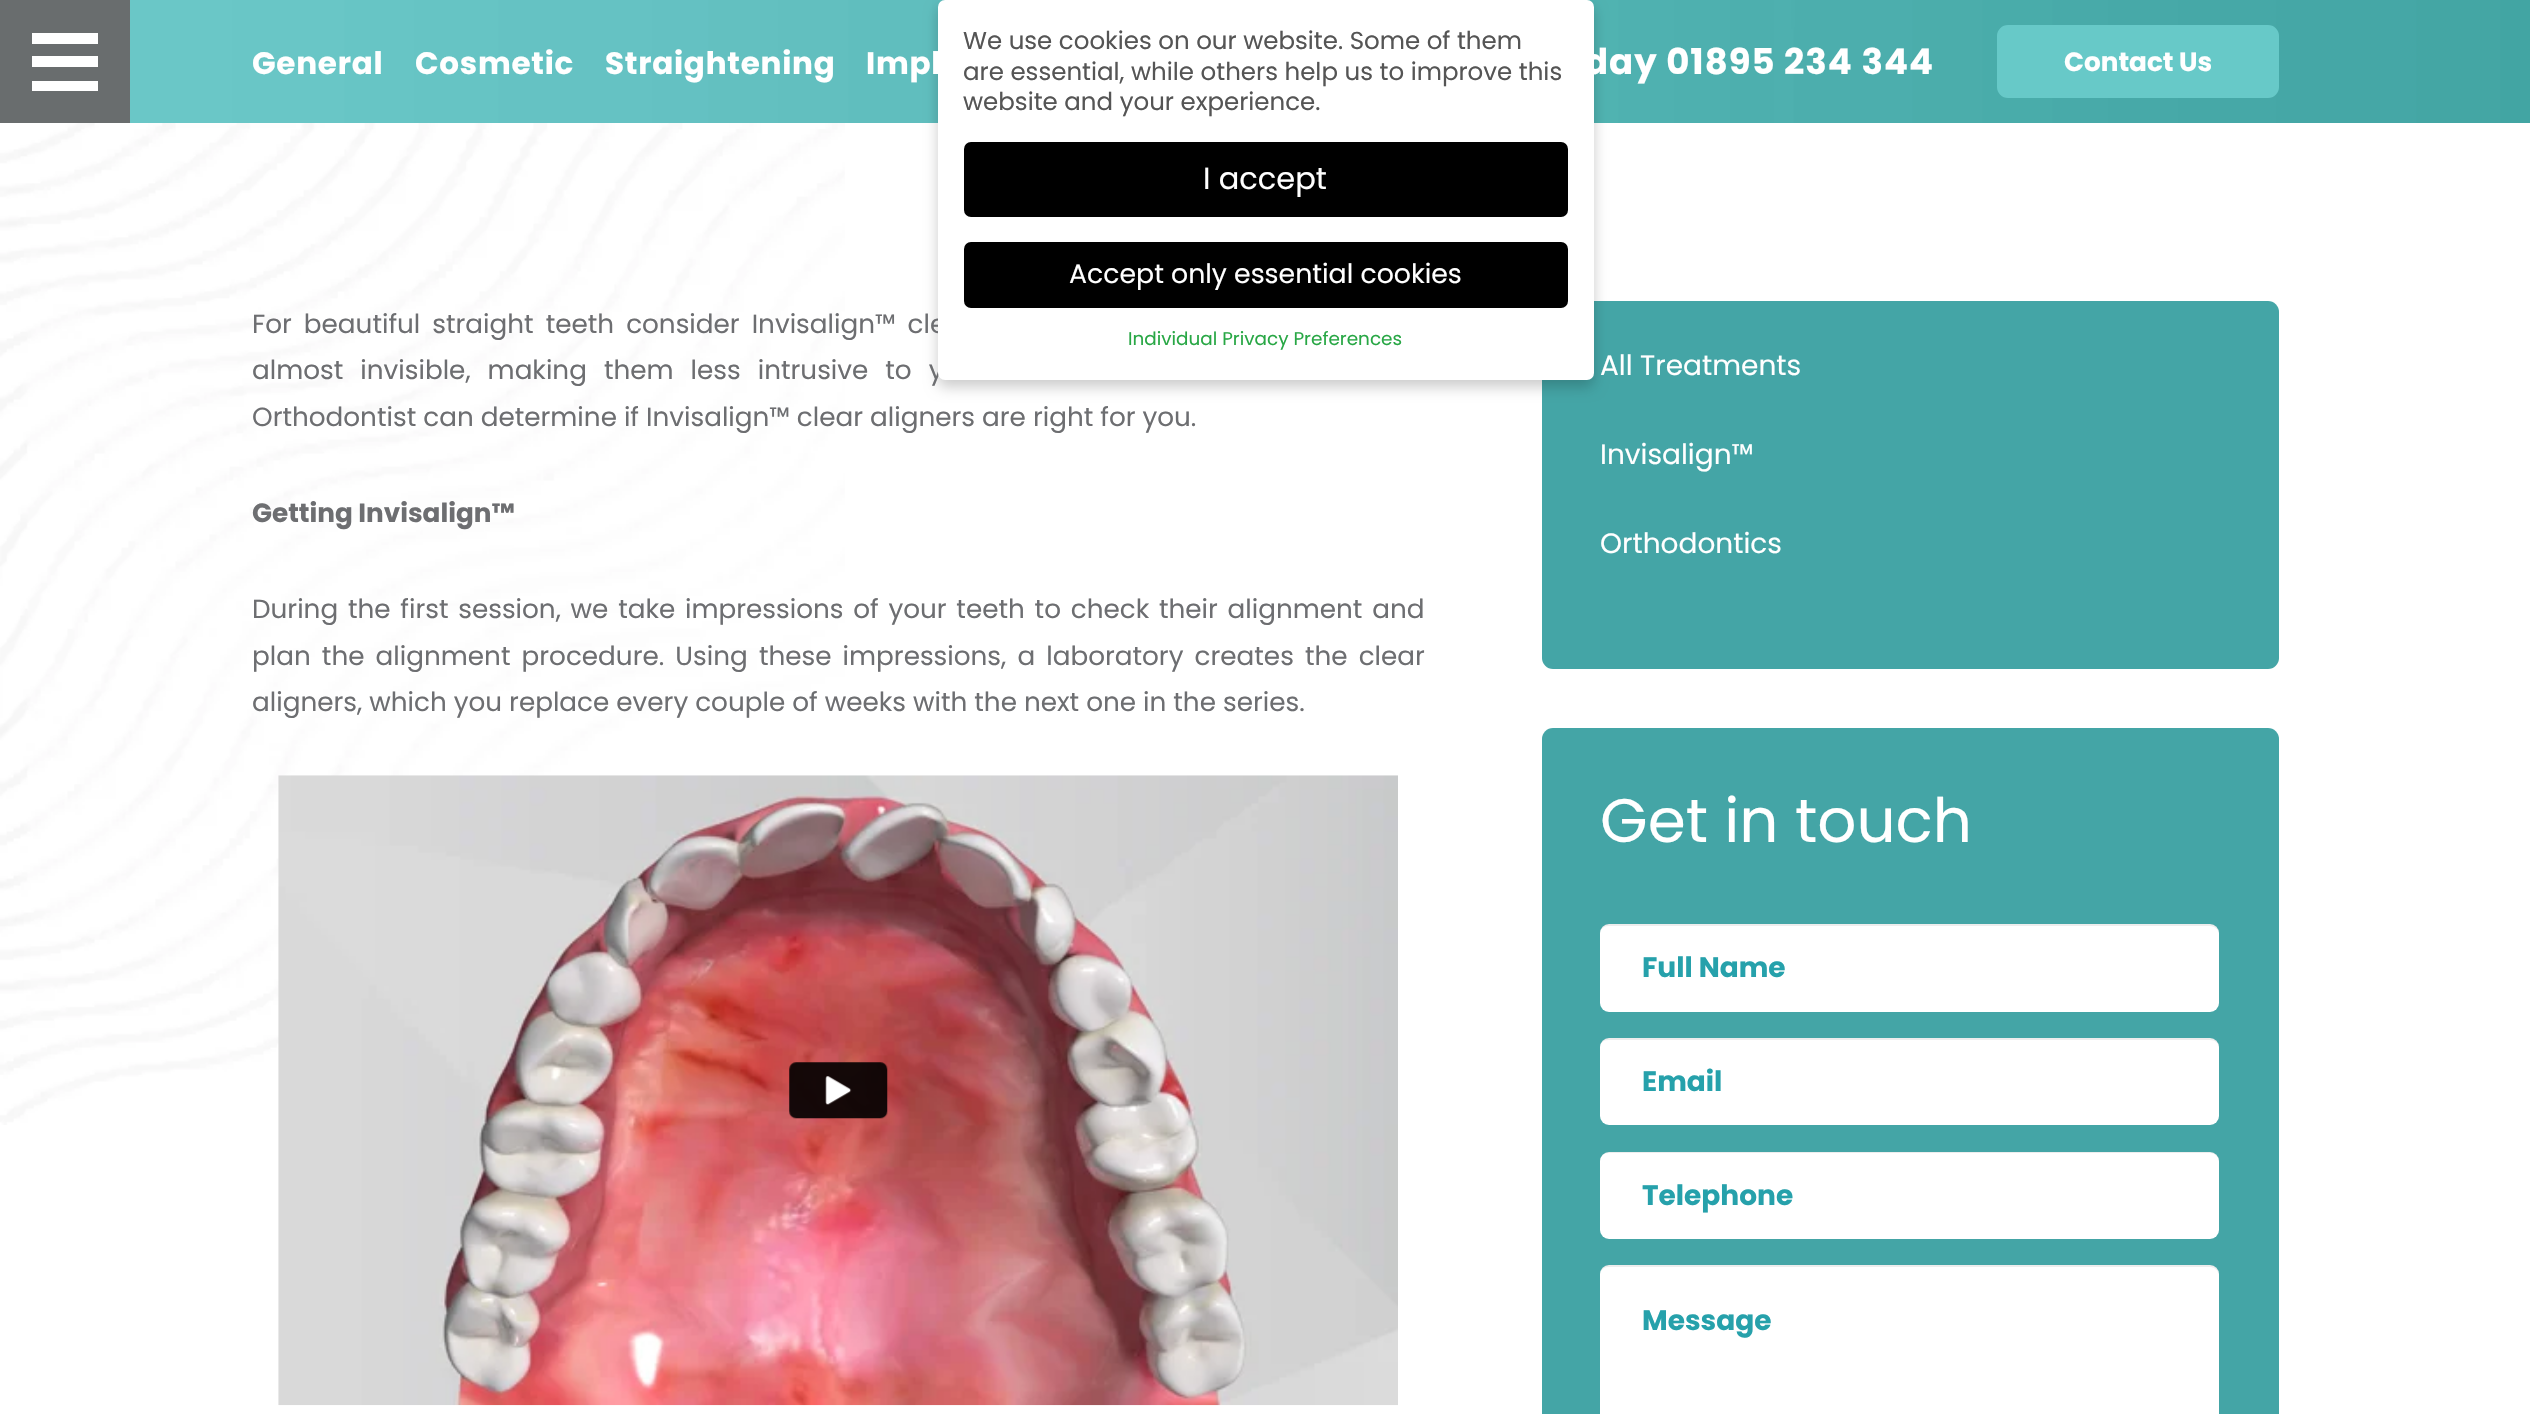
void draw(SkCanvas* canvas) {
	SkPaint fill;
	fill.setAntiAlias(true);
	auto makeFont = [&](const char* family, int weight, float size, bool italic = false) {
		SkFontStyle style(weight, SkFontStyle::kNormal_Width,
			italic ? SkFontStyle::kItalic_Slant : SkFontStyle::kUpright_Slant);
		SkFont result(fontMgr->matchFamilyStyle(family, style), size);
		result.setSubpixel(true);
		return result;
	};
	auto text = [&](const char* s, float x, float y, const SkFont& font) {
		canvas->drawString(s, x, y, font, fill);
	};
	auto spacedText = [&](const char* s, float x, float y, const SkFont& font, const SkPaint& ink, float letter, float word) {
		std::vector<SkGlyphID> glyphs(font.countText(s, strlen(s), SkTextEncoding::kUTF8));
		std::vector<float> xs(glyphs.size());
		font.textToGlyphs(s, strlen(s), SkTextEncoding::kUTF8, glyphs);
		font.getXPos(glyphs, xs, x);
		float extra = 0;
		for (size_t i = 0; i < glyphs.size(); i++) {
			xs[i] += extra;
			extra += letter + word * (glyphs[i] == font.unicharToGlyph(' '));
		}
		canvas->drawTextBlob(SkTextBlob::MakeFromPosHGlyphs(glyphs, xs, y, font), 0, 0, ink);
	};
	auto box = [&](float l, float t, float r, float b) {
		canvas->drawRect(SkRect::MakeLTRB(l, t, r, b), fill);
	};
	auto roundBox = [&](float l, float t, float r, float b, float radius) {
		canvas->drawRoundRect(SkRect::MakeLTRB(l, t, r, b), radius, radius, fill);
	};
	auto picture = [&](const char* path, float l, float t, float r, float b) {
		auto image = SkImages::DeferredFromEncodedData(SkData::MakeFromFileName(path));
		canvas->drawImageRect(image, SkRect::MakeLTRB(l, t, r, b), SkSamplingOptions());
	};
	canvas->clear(0xFFFFFFFF);
	picture("image0.png", 130, 0, 2530, 123);
	fill.setColor(0xFF44A5A6);
	roundBox(1542, 301, 2279, 669, 11);
	fill.setColor(0x33000000);
	fill.setMaskFilter(SkMaskFilter::MakeBlur(kNormal_SkBlurStyle, 7));
	canvas->drawRoundRect(SkRect::MakeLTRB(938, 7, 1594, 387), 7, 7, fill);
	fill.setMaskFilter(nullptr);
	fill.setColor(0xFF696D6E);
	box(0, 0, 130, 123);
	fill.setColor(0xFFFFFFFF);
	box(32, 33, 98, 44);
	box(32, 56, 98, 67);
	box(32, 81, 98, 91);
	fill.setColor(0xFF67C9C8);
	canvas->drawRoundRect(SkRect::MakeLTRB(1998, 26, 2278, 97), 10, 10, fill);
	fill.setStyle(SkPaint::kStroke_Style);
	fill.setStrokeWidth(2);
	canvas->drawRoundRect(SkRect::MakeLTRB(1998, 26, 2278, 97), 10, 10, fill);
	picture("image1.png", 0, 123, 845, 1125);
	picture("image2.png", 278, 775, 1398, 1406);
	fill.setStyle(SkPaint::kFill_Style);
	fill.setColor(0xFF44A5A6);
	roundBox(1542, 728, 2279, 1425, 11);
	fill.setColor(0xFFFFFFFF);
	roundBox(1600, 924, 2219, 1012, 9);
	fill.setColor(0x12000000);
	canvas->drawPath(SkPathBuilder().moveTo(1608, 926).lineTo(2210, 926).cubicTo(2215, 926, 2219, 930, 2219, 934).lineTo(2219, 933).cubicTo(2219, 928, 2215, 924, 2210, 924).lineTo(1609, 924).cubicTo(1604, 924, 1600, 928, 1600, 933).lineTo(1600, 934).cubicTo(1600, 930, 1603, 926, 1608, 926).close().detach(), fill);
	fill.setColor(0xFFFFFFFF);
	roundBox(1600, 1038, 2219, 1125, 9);
	fill.setColor(0x12000000);
	canvas->drawPath(SkPathBuilder().moveTo(1608, 1040).lineTo(2210, 1040).cubicTo(2215, 1040, 2219, 1043, 2219, 1048).lineTo(2219, 1047).cubicTo(2219, 1042, 2215, 1038, 2210, 1038).lineTo(1609, 1038).cubicTo(1604, 1038, 1600, 1042, 1600, 1047).lineTo(1600, 1048).cubicTo(1600, 1043, 1603, 1040, 1608, 1040).close().detach(), fill);
	fill.setColor(0xFFFFFFFF);
	roundBox(1600, 1152, 2219, 1239, 9);
	fill.setColor(0x12000000);
	canvas->drawPath(SkPathBuilder().moveTo(1608, 1153).lineTo(2210, 1153).cubicTo(2215, 1153, 2219, 1157, 2219, 1162).lineTo(2219, 1161).cubicTo(2219, 1156, 2215, 1152, 2210, 1152).lineTo(1609, 1152).cubicTo(1604, 1152, 1600, 1156, 1600, 1161).lineTo(1600, 1162).cubicTo(1600, 1157, 1603, 1153, 1608, 1153).close().detach(), fill);
	fill.setColor(0xFFFFFFFF);
	roundBox(1600, 1265, 2219, 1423, 9);
	fill.setColor(0x12000000);
	canvas->drawPath(SkPathBuilder().moveTo(1608, 1267).lineTo(2210, 1267).cubicTo(2215, 1267, 2219, 1271, 2219, 1276).cubicTo(2219, 1270, 2216, 1265, 2210, 1265).lineTo(1609, 1265).cubicTo(1603, 1265, 1600, 1270, 1600, 1276).cubicTo(1600, 1271, 1603, 1267, 1608, 1267).close().detach(), fill);
	auto font1 = makeFont("Poppins", 700, 31);
	fill.setColor(0xFFFFFFFF);
	spacedText("General", 252, 74, font1, fill, 0.75f, 0);
	spacedText("Cosmetic", 415, 74, font1, fill, 0.75f, 0);
	spacedText("Straightening", 605, 74, font1, fill, 0.75f, 0);
	spacedText("Impl", 866, 74, font1, fill, 0.75f, 0);
	auto font2 = makeFont("Poppins", 700, 35.5f);
	spacedText("day 01895 234 344", 1584, 74, font2, fill, 1, 0);
	auto font3 = makeFont("Poppins", 700, 26.25f);
	text("Contact Us", 2064, 71, font3);
	auto font4 = makeFont("Poppins", 400, 26.25f);
	fill.setColor(0xFF6D6E71);
	spacedText("For beautiful straight teeth consider Invisalign™ cle", 252, 333, font4, fill, 0, 5);
	spacedText("almost invisible, making them less intrusive to y", 252, 379, font4, fill, 0, 10);
	fill.setColor(0xFFFFFFFF);
	roundBox(938, 0, 1594, 380, 7);
	auto font5 = makeFont("Poppins", 400, 18.4f);
	fill.setColor(0xFF28A745);
	text("Individual Privacy Preferences", 1128, 345, font5);
	fill.setColor(0xFF000000);
	roundBox(964, 242, 1568, 308, 7);
	auto font6 = makeFont("Poppins", 400, 26.75f);
	fill.setColor(0xFFFFFFFF);
	text("Accept only essential cookies", 1069, 283, font6);
	fill.setColor(0xFF000000);
	roundBox(964, 142, 1568, 217, 7);
	auto font7 = makeFont("Poppins", 400, 30.5f);
	fill.setColor(0xFFFFFFFF);
	text("I accept", 1203, 189, font7);
	auto font8 = makeFont("Poppins", 400, 24.5f);
	fill.setColor(0xFF555555);
	text("website and your experience.", 963, 110, font8);
	text("are essential, while others help us to improve this", 963, 80, font8);
	text("We use cookies on our website. Some of them", 963, 49, font8);
	fill.setColor(0xFF6D6E71);
	text("Orthodontist can determine if Invisalign™ clear aligners are right for you.", 252, 426, font4);
	text("Getting Invisalign™", 252, 522, font3);
	spacedText("During the first session, we take impressions of your teeth to check their alignment and", 252, 618, font4, fill, 0, 2.75f);
	spacedText("plan the alignment procedure. Using these impressions, a laboratory creates the clear", 252, 665, font4, fill, 0, 4.1f);
	text("aligners, which you replace every couple of weeks with the next one in the series.", 252, 711, font4);
	auto font9 = makeFont("Poppins", 400, 28);
	fill.setColor(0xFFFFFFFF);
	text("All Treatments", 1600, 375, font9);
	text("Invisalign™", 1600, 464, font9);
	text("Orthodontics", 1600, 553, font9);
	auto font10 = makeFont("Poppins", 400, 61.25f);
	text("Get in touch", 1600, 842, font10);
	auto font11 = makeFont("Poppins", 700, 28);
	fill.setColor(0xFF26A1AB);
	text("Full Name", 1642, 977, font11);
	text("Email", 1642, 1091, font11);
	text("Telephone", 1642, 1205, font11);
	text("Message", 1642, 1330, font11);
}
